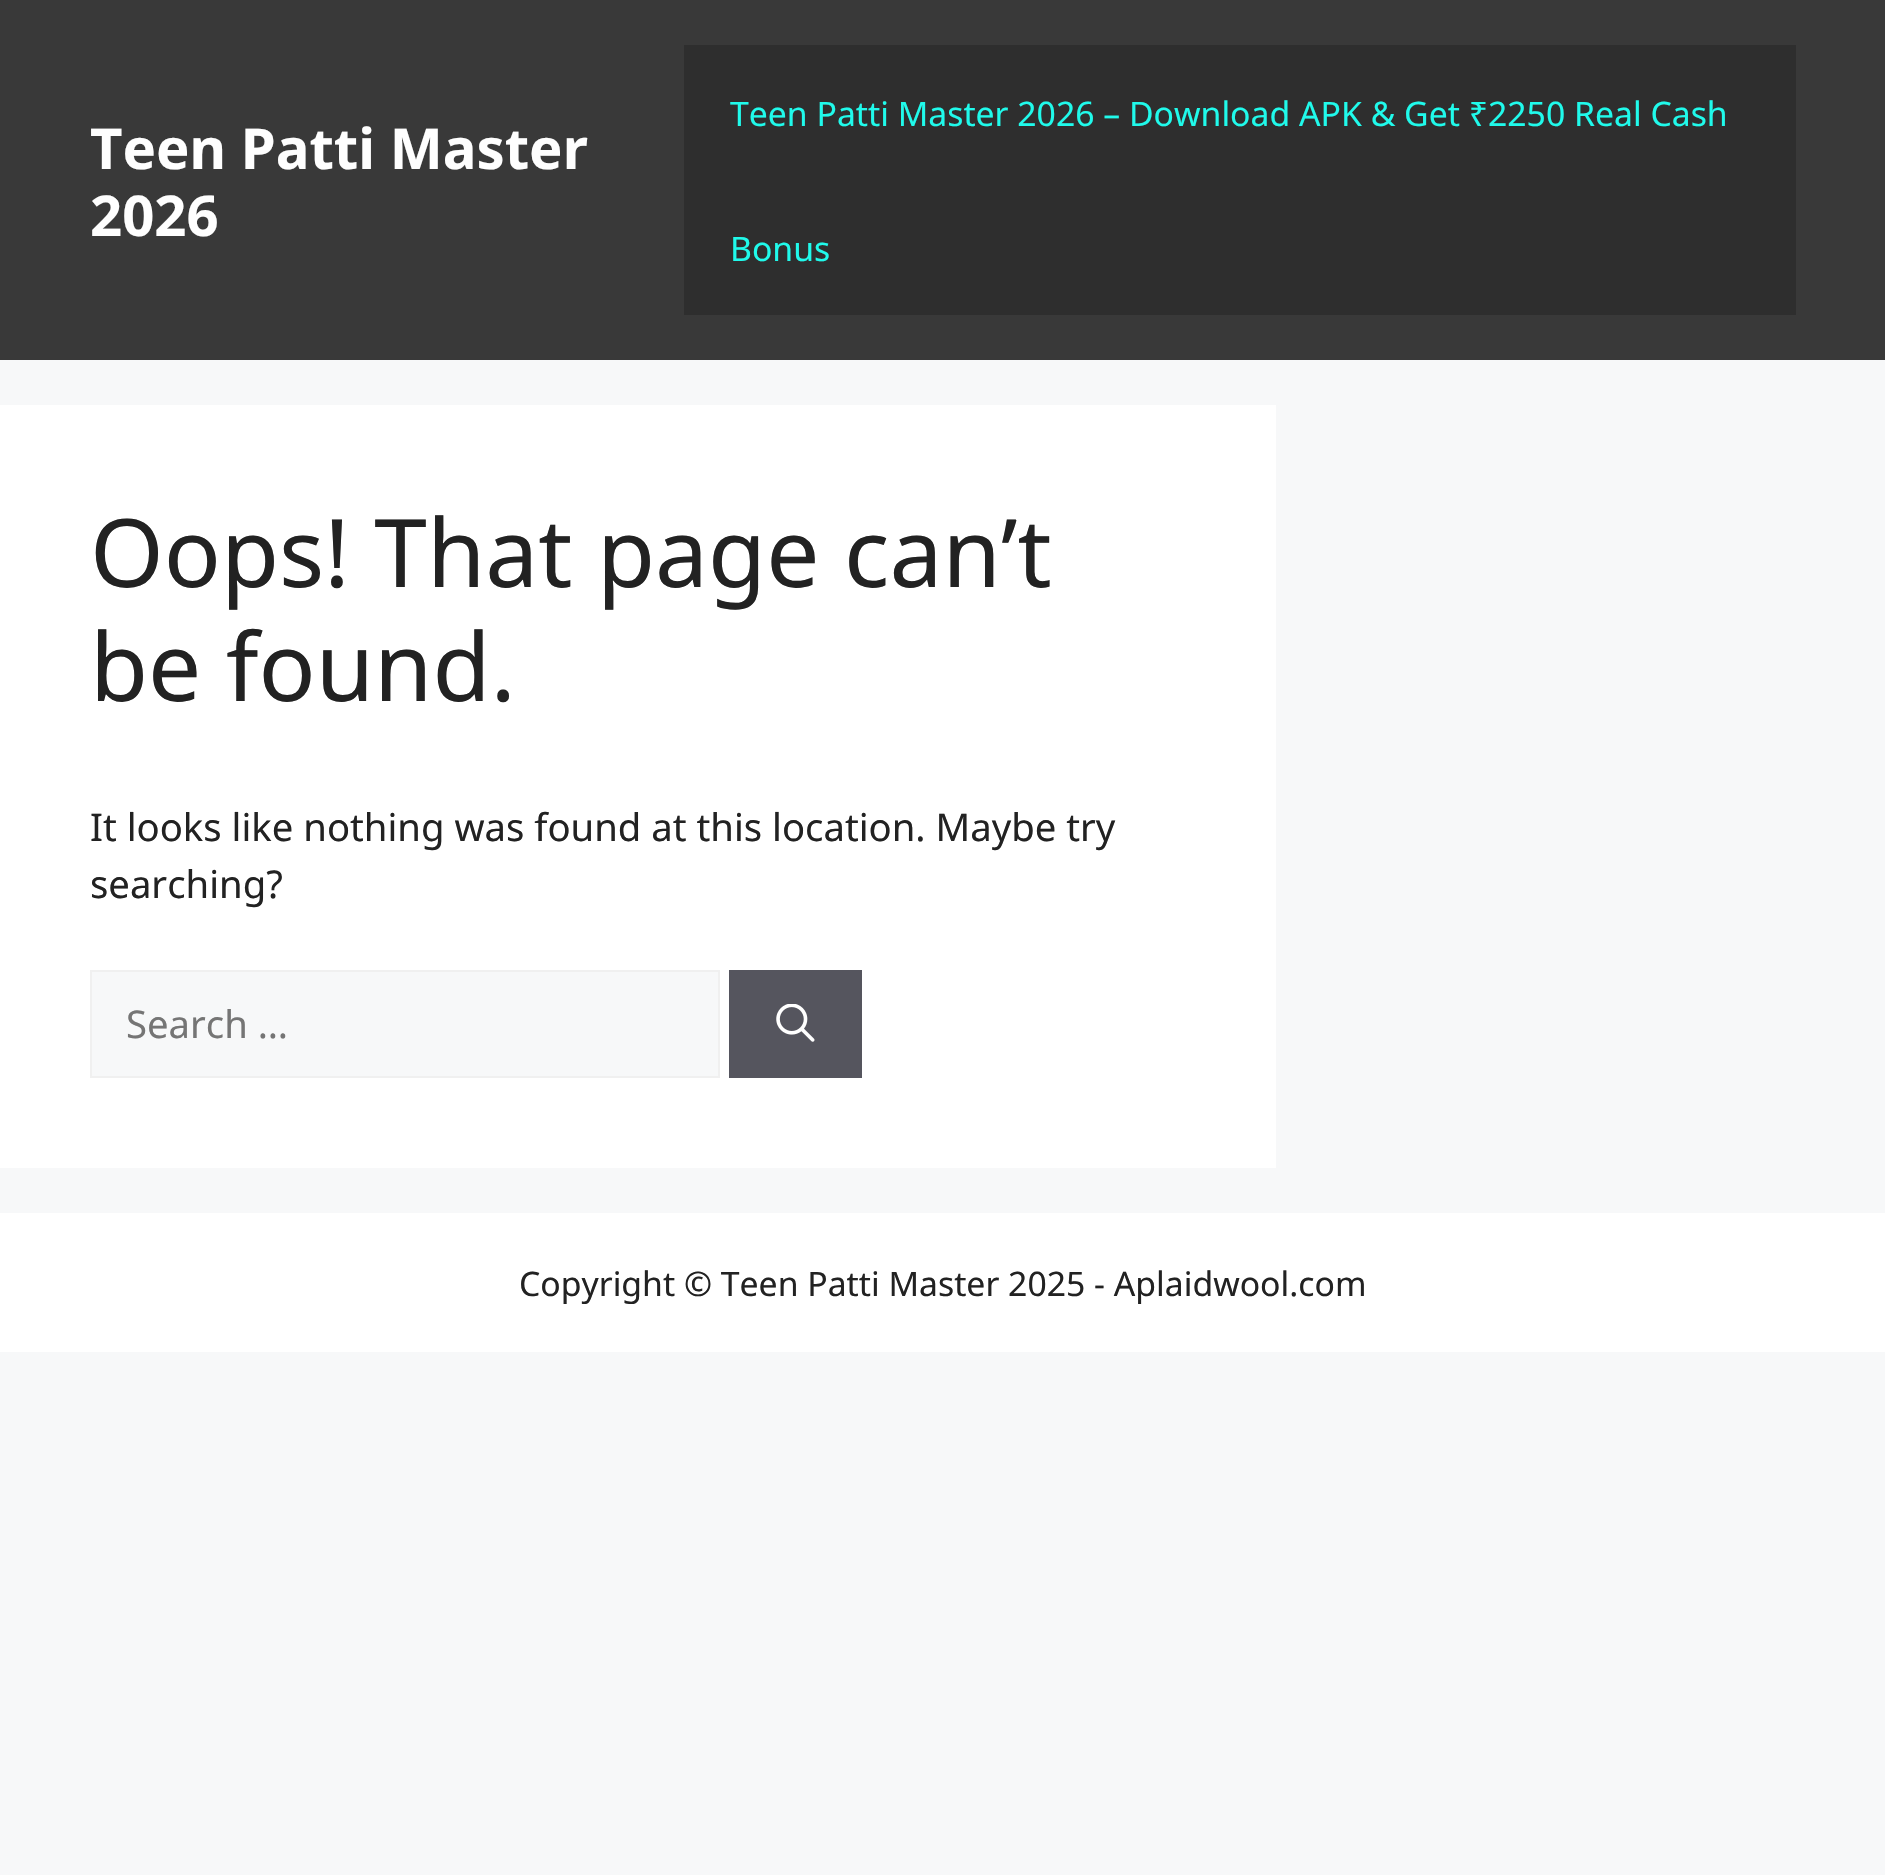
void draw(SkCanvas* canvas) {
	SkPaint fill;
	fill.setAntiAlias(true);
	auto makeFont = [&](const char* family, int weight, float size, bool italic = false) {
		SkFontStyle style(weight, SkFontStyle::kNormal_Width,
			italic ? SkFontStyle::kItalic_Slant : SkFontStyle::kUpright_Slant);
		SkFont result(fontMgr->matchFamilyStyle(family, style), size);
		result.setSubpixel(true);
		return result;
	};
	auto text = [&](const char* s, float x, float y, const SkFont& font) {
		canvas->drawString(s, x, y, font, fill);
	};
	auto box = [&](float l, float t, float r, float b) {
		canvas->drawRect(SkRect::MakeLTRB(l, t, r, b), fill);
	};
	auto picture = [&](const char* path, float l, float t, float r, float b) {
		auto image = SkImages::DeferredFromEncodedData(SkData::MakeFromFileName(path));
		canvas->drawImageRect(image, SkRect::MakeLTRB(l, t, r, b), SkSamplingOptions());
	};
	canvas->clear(0xFFF7F8F9);
	fill.setColor(0xFF393939);
	box(0, 0, 1885, 360);
	fill.setColor(0xFF2E2E2E);
	box(684, 45, 1796, 315);
	fill.setColor(0xFFFFFFFF);
	box(0, 405, 1276, 1168);
	fill.setColor(0xFFF7F8F9);
	canvas->drawRect(SkRect::MakeLTRB(91, 971, 719, 1077), fill);
	fill.setStyle(SkPaint::kStroke_Style);
	fill.setStrokeWidth(2);
	fill.setColor(0xFFF0F0F0);
	canvas->drawRect(SkRect::MakeLTRB(91, 971, 719, 1077), fill);
	fill.setStyle(SkPaint::kFill_Style);
	fill.setColor(0xFF55555E);
	box(729, 970, 862, 1078);
	picture("image0.png", 776, 1004, 815, 1042);
	fill.setColor(0xFFFFFFFF);
	box(0, 1213, 1885, 1352);
	auto font1 = makeFont("Noto Sans", 700, 56.25f);
	fill.setColor(0xFFFEFEFE);
	text("Teen Patti Master", 90, 169, font1);
	text("2026", 90, 236, font1);
	auto font2 = makeFont("Noto Sans", 400, 33.75f);
	fill.setColor(0xFF20FAEB);
	text("Teen Patti Master 2026 – Download APK & Get ₹2250 Real Cash", 730, 126, font2);
	text("Bonus", 730, 261, font2);
	auto font3 = makeFont("Noto Sans", 400, 94.5f);
	fill.setColor(0xFF222222);
	text("Oops! That page can’t", 90, 587, font3);
	text("be found.", 90, 701, font3);
	auto font4 = makeFont("Noto Sans", 400, 38.25f);
	text("It looks like nothing was found at this location. Maybe try", 90, 841, font4);
	text("searching?", 90, 898, font4);
	fill.setColor(0xFF757575);
	text("Search …", 126, 1038, font4);
	fill.setColor(0xFF222222);
	text("Copyright © Teen Patti Master 2025 - Aplaidwool.com", 519, 1296, font2);
}
